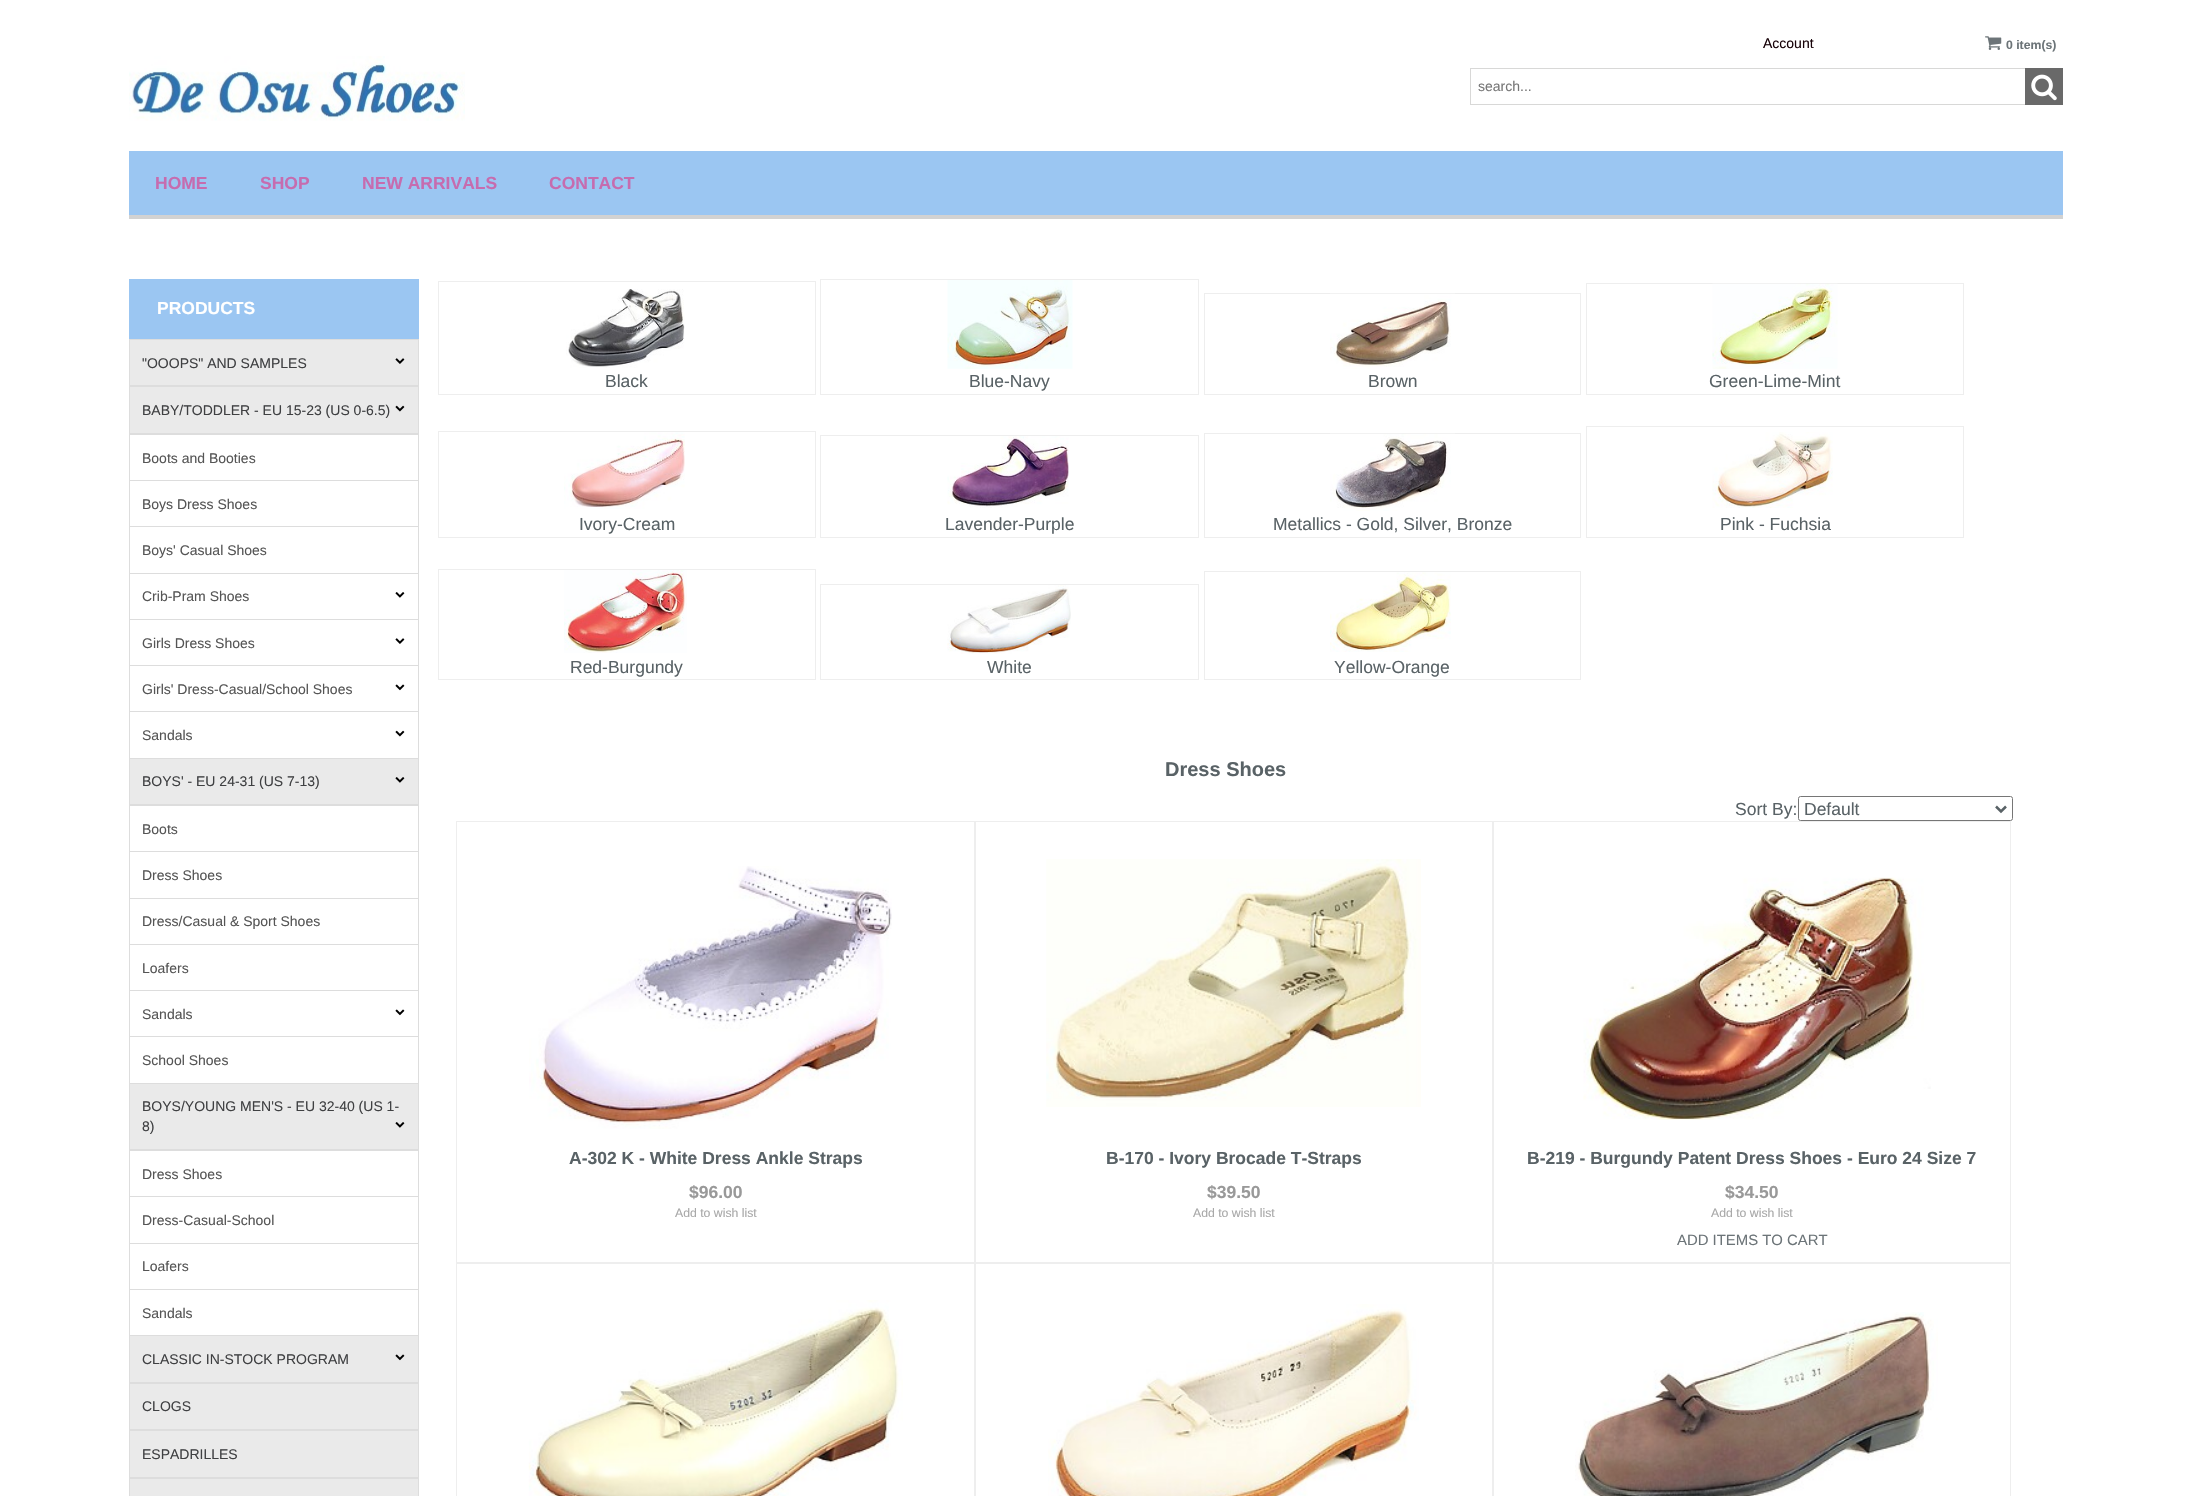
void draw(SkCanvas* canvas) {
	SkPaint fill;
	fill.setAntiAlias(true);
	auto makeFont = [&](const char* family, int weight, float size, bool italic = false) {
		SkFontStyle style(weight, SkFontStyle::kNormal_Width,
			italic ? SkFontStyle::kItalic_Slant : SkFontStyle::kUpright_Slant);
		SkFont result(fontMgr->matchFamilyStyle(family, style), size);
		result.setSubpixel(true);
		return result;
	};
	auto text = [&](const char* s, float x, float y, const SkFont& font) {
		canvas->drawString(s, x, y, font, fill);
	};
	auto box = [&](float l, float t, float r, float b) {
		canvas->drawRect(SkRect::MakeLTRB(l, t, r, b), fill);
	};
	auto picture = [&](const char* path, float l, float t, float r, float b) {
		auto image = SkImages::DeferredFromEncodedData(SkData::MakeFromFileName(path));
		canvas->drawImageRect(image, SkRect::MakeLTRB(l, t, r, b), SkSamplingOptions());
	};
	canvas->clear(0xFFFFFFFF);
	picture("image0.png", 1985, 36, 2002, 50);
	picture("image1.png", 129, 56, 465, 121);
	fill.setStyle(SkPaint::kStroke_Style);
	fill.setStrokeWidth(1);
	fill.setColor(0xFFD8D8D7);
	canvas->drawRect(SkRect::MakeLTRB(1470.5f, 68.5f, 2062.5f, 104.5f), fill);
	fill.setStyle(SkPaint::kFill_Style);
	fill.setColor(0xFF696969);
	box(2025, 68, 2063, 105);
	picture("image2.png", 2031, 74, 2057, 101);
	fill.setColor(0xFF9BC6F2);
	box(129, 151, 2063, 215);
	fill.setColor(0xFFD2D2D2);
	box(129, 215, 2063, 219);
	fill.setColor(0xFF9BC6F2);
	box(129, 279, 419, 339);
	fill.setColor(0xFFEAEAEA);
	canvas->drawRect(SkRect::MakeLTRB(129.5f, 339.5f, 418.5f, 385.5f), fill);
	fill.setStyle(SkPaint::kStroke_Style);
	fill.setColor(0xFFDDDDDD);
	canvas->drawRect(SkRect::MakeLTRB(129.5f, 339.5f, 418.5f, 385.5f), fill);
	picture("image3.png", 395, 358, 405, 364);
	fill.setStyle(SkPaint::kFill_Style);
	fill.setColor(0xFFEAEAEA);
	canvas->drawRect(SkRect::MakeLTRB(129.5f, 386.5f, 418.5f, 433.5f), fill);
	fill.setStyle(SkPaint::kStroke_Style);
	fill.setColor(0xFFDDDDDD);
	canvas->drawRect(SkRect::MakeLTRB(129.5f, 386.5f, 418.5f, 433.5f), fill);
	picture("image4.png", 395, 405, 405, 412);
	canvas->drawRect(SkRect::MakeLTRB(129.5f, 434.5f, 418.5f, 480.5f), fill);
	canvas->drawRect(SkRect::MakeLTRB(129.5f, 480.5f, 418.5f, 527.5f), fill);
	fill.setStyle(SkPaint::kFill_Style);
	fill.setColor(0xFFFFFFFF);
	box(130, 527, 418, 528);
	fill.setStyle(SkPaint::kStroke_Style);
	fill.setColor(0xFFDDDDDD);
	canvas->drawRect(SkRect::MakeLTRB(129.5f, 526.5f, 418.5f, 573.5f), fill);
	canvas->drawRect(SkRect::MakeLTRB(129.5f, 573.5f, 418.5f, 619.5f), fill);
	picture("image5.png", 395, 592, 405, 598);
	canvas->drawRect(SkRect::MakeLTRB(129.5f, 619.5f, 418.5f, 665.5f), fill);
	picture("image6.png", 395, 638, 405, 644);
	canvas->drawRect(SkRect::MakeLTRB(129.5f, 665.5f, 418.5f, 712.5f), fill);
	picture("image7.png", 395, 684, 405, 691);
	fill.setStyle(SkPaint::kFill_Style);
	fill.setColor(0xFFFFFFFF);
	box(130, 712, 418, 713);
	fill.setStyle(SkPaint::kStroke_Style);
	fill.setColor(0xFFDDDDDD);
	canvas->drawRect(SkRect::MakeLTRB(129.5f, 711.5f, 418.5f, 758.5f), fill);
	picture("image8.png", 395, 730, 405, 737);
	fill.setStyle(SkPaint::kFill_Style);
	fill.setColor(0xFFEAEAEA);
	canvas->drawRect(SkRect::MakeLTRB(129.5f, 758.5f, 418.5f, 804.5f), fill);
	fill.setStyle(SkPaint::kStroke_Style);
	fill.setColor(0xFFDDDDDD);
	canvas->drawRect(SkRect::MakeLTRB(129.5f, 758.5f, 418.5f, 804.5f), fill);
	picture("image9.png", 395, 777, 405, 783);
	canvas->drawRect(SkRect::MakeLTRB(129.5f, 805.5f, 418.5f, 852.5f), fill);
	fill.setStyle(SkPaint::kFill_Style);
	fill.setColor(0xFFFFFFFF);
	box(130, 852, 418, 853);
	fill.setStyle(SkPaint::kStroke_Style);
	fill.setColor(0xFFDDDDDD);
	canvas->drawRect(SkRect::MakeLTRB(129.5f, 851.5f, 418.5f, 898.5f), fill);
	canvas->drawRect(SkRect::MakeLTRB(129.5f, 898.5f, 418.5f, 944.5f), fill);
	canvas->drawRect(SkRect::MakeLTRB(129.5f, 944.5f, 418.5f, 990.5f), fill);
	canvas->drawRect(SkRect::MakeLTRB(129.5f, 990.5f, 418.5f, 1037.5f), fill);
	picture("image7.png", 395, 1009, 405, 1016);
	fill.setStyle(SkPaint::kFill_Style);
	fill.setColor(0xFFFFFFFF);
	box(130, 1037, 418, 1038);
	fill.setStyle(SkPaint::kStroke_Style);
	fill.setColor(0xFFDDDDDD);
	canvas->drawRect(SkRect::MakeLTRB(129.5f, 1036.5f, 418.5f, 1083.5f), fill);
	fill.setStyle(SkPaint::kFill_Style);
	fill.setColor(0xFFEAEAEA);
	canvas->drawRect(SkRect::MakeLTRB(129.5f, 1083.5f, 418.5f, 1149.5f), fill);
	fill.setStyle(SkPaint::kStroke_Style);
	fill.setColor(0xFFDDDDDD);
	canvas->drawRect(SkRect::MakeLTRB(129.5f, 1083.5f, 418.5f, 1149.5f), fill);
	picture("image9.png", 395, 1122, 405, 1128);
	canvas->drawRect(SkRect::MakeLTRB(129.5f, 1150.5f, 418.5f, 1197.5f), fill);
	fill.setStyle(SkPaint::kFill_Style);
	fill.setColor(0xFFFFFFFF);
	box(130, 1197, 418, 1198);
	fill.setStyle(SkPaint::kStroke_Style);
	fill.setColor(0xFFDDDDDD);
	canvas->drawRect(SkRect::MakeLTRB(129.5f, 1196.5f, 418.5f, 1243.5f), fill);
	canvas->drawRect(SkRect::MakeLTRB(129.5f, 1243.5f, 418.5f, 1289.5f), fill);
	canvas->drawRect(SkRect::MakeLTRB(129.5f, 1289.5f, 418.5f, 1335.5f), fill);
	fill.setStyle(SkPaint::kFill_Style);
	fill.setColor(0xFFEAEAEA);
	canvas->drawRect(SkRect::MakeLTRB(129.5f, 1335.5f, 418.5f, 1382.5f), fill);
	fill.setStyle(SkPaint::kStroke_Style);
	fill.setColor(0xFFDDDDDD);
	canvas->drawRect(SkRect::MakeLTRB(129.5f, 1335.5f, 418.5f, 1382.5f), fill);
	picture("image10.png", 395, 1354, 405, 1361);
	fill.setStyle(SkPaint::kFill_Style);
	fill.setColor(0xFFEAEAEA);
	canvas->drawRect(SkRect::MakeLTRB(129.5f, 1383.5f, 418.5f, 1429.5f), fill);
	fill.setStyle(SkPaint::kStroke_Style);
	fill.setColor(0xFFDDDDDD);
	canvas->drawRect(SkRect::MakeLTRB(129.5f, 1383.5f, 418.5f, 1429.5f), fill);
	fill.setStyle(SkPaint::kFill_Style);
	fill.setColor(0xFFEAEAEA);
	canvas->drawRect(SkRect::MakeLTRB(129.5f, 1430.5f, 418.5f, 1477.5f), fill);
	fill.setStyle(SkPaint::kStroke_Style);
	fill.setColor(0xFFDDDDDD);
	canvas->drawRect(SkRect::MakeLTRB(129.5f, 1430.5f, 418.5f, 1477.5f), fill);
	fill.setStyle(SkPaint::kFill_Style);
	fill.setColor(0xFFEAEAEA);
	canvas->drawRect(SkRect::MakeLTRB(129.5f, 1478.5f, 418.5f, 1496.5f), fill);
	fill.setStyle(SkPaint::kStroke_Style);
	fill.setColor(0xFFDDDDDD);
	canvas->drawRect(SkRect::MakeLTRB(129.5f, 1478.5f, 418.5f, 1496.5f), fill);
	fill.setColor(0xFFEEEEEE);
	canvas->drawRect(SkRect::MakeLTRB(438.5f, 281.5f, 815.5f, 394.5f), fill);
	picture("image11.png", 566, 289, 685, 368);
	canvas->drawRect(SkRect::MakeLTRB(820.5f, 279.5f, 1198.5f, 394.5f), fill);
	picture("image12.png", 947, 280, 1073, 369);
	canvas->drawRect(SkRect::MakeLTRB(1204.5f, 293.5f, 1580.5f, 394.5f), fill);
	picture("image13.png", 1330, 293, 1455, 369);
	canvas->drawRect(SkRect::MakeLTRB(1586.5f, 283.5f, 1963.5f, 394.5f), fill);
	picture("image14.png", 1712, 283, 1838, 369);
	canvas->drawRect(SkRect::MakeLTRB(438.5f, 431.5f, 815.5f, 537.5f), fill);
	picture("image15.png", 564, 432, 685, 509);
	canvas->drawRect(SkRect::MakeLTRB(820.5f, 435.5f, 1198.5f, 537.5f), fill);
	picture("image16.png", 947, 436, 1069, 508);
	canvas->drawRect(SkRect::MakeLTRB(1204.5f, 433.5f, 1580.5f, 537.5f), fill);
	picture("image17.png", 1330, 433, 1455, 511);
	canvas->drawRect(SkRect::MakeLTRB(1586.5f, 426.5f, 1963.5f, 537.5f), fill);
	picture("image18.png", 1712, 432, 1833, 508);
	canvas->drawRect(SkRect::MakeLTRB(438.5f, 569.5f, 815.5f, 679.5f), fill);
	picture("image19.png", 564, 570, 687, 653);
	canvas->drawRect(SkRect::MakeLTRB(820.5f, 584.5f, 1198.5f, 679.5f), fill);
	picture("image20.png", 947, 585, 1071, 654);
	canvas->drawRect(SkRect::MakeLTRB(1204.5f, 571.5f, 1580.5f, 679.5f), fill);
	picture("image21.png", 1330, 572, 1451, 652);
	fill.setColor(0xFF767676);
	canvas->drawRoundRect(SkRect::MakeLTRB(1798.5f, 796.5f, 2012.5f, 820.5f), 2, 2, fill);
	fill.setStrokeWidth(2.5f);
	fill.setColor(0xFF596266);
	canvas->drawPath(SkPathBuilder().moveTo(1996, 806.5f).lineTo(2001, 811.5f).lineTo(2006, 806.5f).detach(), fill);
	fill.setStrokeWidth(1);
	fill.setColor(0xFFEEEEEE);
	canvas->drawRect(SkRect::MakeLTRB(456.5f, 821.5f, 974.5f, 1262.5f), fill);
	picture("image22.png", 529, 866, 892, 1129);
	canvas->drawRect(SkRect::MakeLTRB(975.5f, 821.5f, 1492.5f, 1262.5f), fill);
	picture("image23.png", 1046, 859, 1421, 1107);
	canvas->drawRect(SkRect::MakeLTRB(1493.5f, 821.5f, 2010.5f, 1262.5f), fill);
	picture("image24.png", 1583, 877, 1931, 1120);
	canvas->drawRect(SkRect::MakeLTRB(456.5f, 1263.5f, 974.5f, 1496.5f), fill);
	picture("image25.png", 528, 1300, 903, 1496);
	canvas->drawRect(SkRect::MakeLTRB(975.5f, 1263.5f, 1492.5f, 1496.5f), fill);
	picture("image26.png", 1048, 1304, 1419, 1496);
	canvas->drawRect(SkRect::MakeLTRB(1493.5f, 1263.5f, 2010.5f, 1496.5f), fill);
	picture("image27.png", 1575, 1312, 1938, 1496);
	auto font1 = makeFont("Liberation Sans", 400, 14);
	fill.setStyle(SkPaint::kFill_Style);
	fill.setColor(0xFF180309);
	text("Account", 1763, 48, font1);
	auto font2 = makeFont("Liberation Sans", 700, 12.25f);
	fill.setColor(0xFF6C7478);
	text("0 item(s)", 2006, 49, font2);
	fill.setColor(0xFF777777);
	text("search...", 1478, 91, font1);
	auto font3 = makeFont("Liberation Sans", 700, 17.5f);
	fill.setColor(0xFFC66CAF);
	text("HOME", 155, 189, font3);
	text("SHOP", 260, 189, font3);
	text("NEW ARRIVALS", 362, 189, font3);
	text("CONTACT", 549, 189, font3);
	fill.setColor(0xFFFFFFFF);
	text("PRODUCTS", 157, 314, font3);
	fill.setColor(0xFF3F4042);
	text("\"OOOPS\" AND SAMPLES", 142, 368, font1);
	text("BABY/TODDLER - EU 15-23 (US 0-6.5)", 142, 415, font1);
	fill.setColor(0xFF555555);
	text("Boots and Booties", 142, 463, font1);
	text("Boys Dress Shoes", 142, 509, font1);
	text("Boys' Casual Shoes", 142, 555, font1);
	text("Crib-Pram Shoes", 142, 601, font1);
	text("Girls Dress Shoes", 142, 648, font1);
	text("Girls' Dress-Casual/School Shoes", 142, 694, font1);
	text("Sandals", 142, 740, font1);
	fill.setColor(0xFF3F4042);
	text("BOYS' - EU 24-31 (US 7-13)", 142, 786, font1);
	fill.setColor(0xFF555555);
	text("Boots", 142, 834, font1);
	text("Dress Shoes", 142, 880, font1);
	text("Dress/Casual & Sport Shoes", 142, 926, font1);
	text("Loafers", 142, 973, font1);
	text("Sandals", 142, 1019, font1);
	text("School Shoes", 142, 1065, font1);
	fill.setColor(0xFF3F4042);
	text("BOYS/YOUNG MEN'S - EU 32-40 (US 1-", 142, 1111, font1);
	text("8)", 142, 1131, font1);
	fill.setColor(0xFF555555);
	text("Dress Shoes", 142, 1179, font1);
	text("Dress-Casual-School", 142, 1225, font1);
	text("Loafers", 142, 1271, font1);
	text("Sandals", 142, 1318, font1);
	fill.setColor(0xFF3F4042);
	text("CLASSIC IN-STOCK PROGRAM", 142, 1364, font1);
	text("CLOGS", 142, 1411, font1);
	text("ESPADRILLES", 142, 1459, font1);
	auto font4 = makeFont("Liberation Sans", 400, 17.5f);
	fill.setColor(0xFF596266);
	text("Black", 605, 387, font4);
	text("Blue-Navy", 969, 387, font4);
	text("Brown", 1368, 387, font4);
	text("Green-Lime-Mint", 1709, 387, font4);
	text("Ivory-Cream", 579, 530, font4);
	text("Lavender-Purple", 945, 530, font4);
	text("Metallics - Gold, Silver, Bronze", 1273, 530, font4);
	text("Pink - Fuchsia", 1720, 530, font4);
	text("Red-Burgundy", 570, 673, font4);
	text("White", 987, 673, font4);
	text("Yellow-Orange", 1334, 673, font4);
	auto font5 = makeFont("Liberation Sans", 700, 20);
	text("Dress Shoes", 1165, 776, font5);
	text("Sort By:", 1735, 815, font4);
	text("Default", 1804, 815, font4);
	text("A-302 K - White Dress Ankle Straps", 569, 1164, font3);
	fill.setColor(0xFF999999);
	text("$96.00", 689, 1198, font3);
	auto font6 = makeFont("Liberation Sans", 400, 12.25f);
	fill.setColor(0xFFA8A8A8);
	text("Add to wish list", 675, 1217, font6);
	fill.setColor(0xFF596266);
	text("B-170 - Ivory Brocade T-Straps", 1106, 1164, font3);
	fill.setColor(0xFF999999);
	text("$39.50", 1207, 1198, font3);
	fill.setColor(0xFFA8A8A8);
	text("Add to wish list", 1193, 1217, font6);
	fill.setColor(0xFF596266);
	text("B-219 - Burgundy Patent Dress Shoes - Euro 24 Size 7", 1527, 1164, font3);
	fill.setColor(0xFF999999);
	text("$34.50", 1725, 1198, font3);
	fill.setColor(0xFFA8A8A8);
	text("Add to wish list", 1711, 1217, font6);
	auto font7 = makeFont("Liberation Sans", 400, 14.9f);
	fill.setColor(0xFF6C7478);
	text("ADD ITEMS TO CART", 1677, 1245, font7);
}
